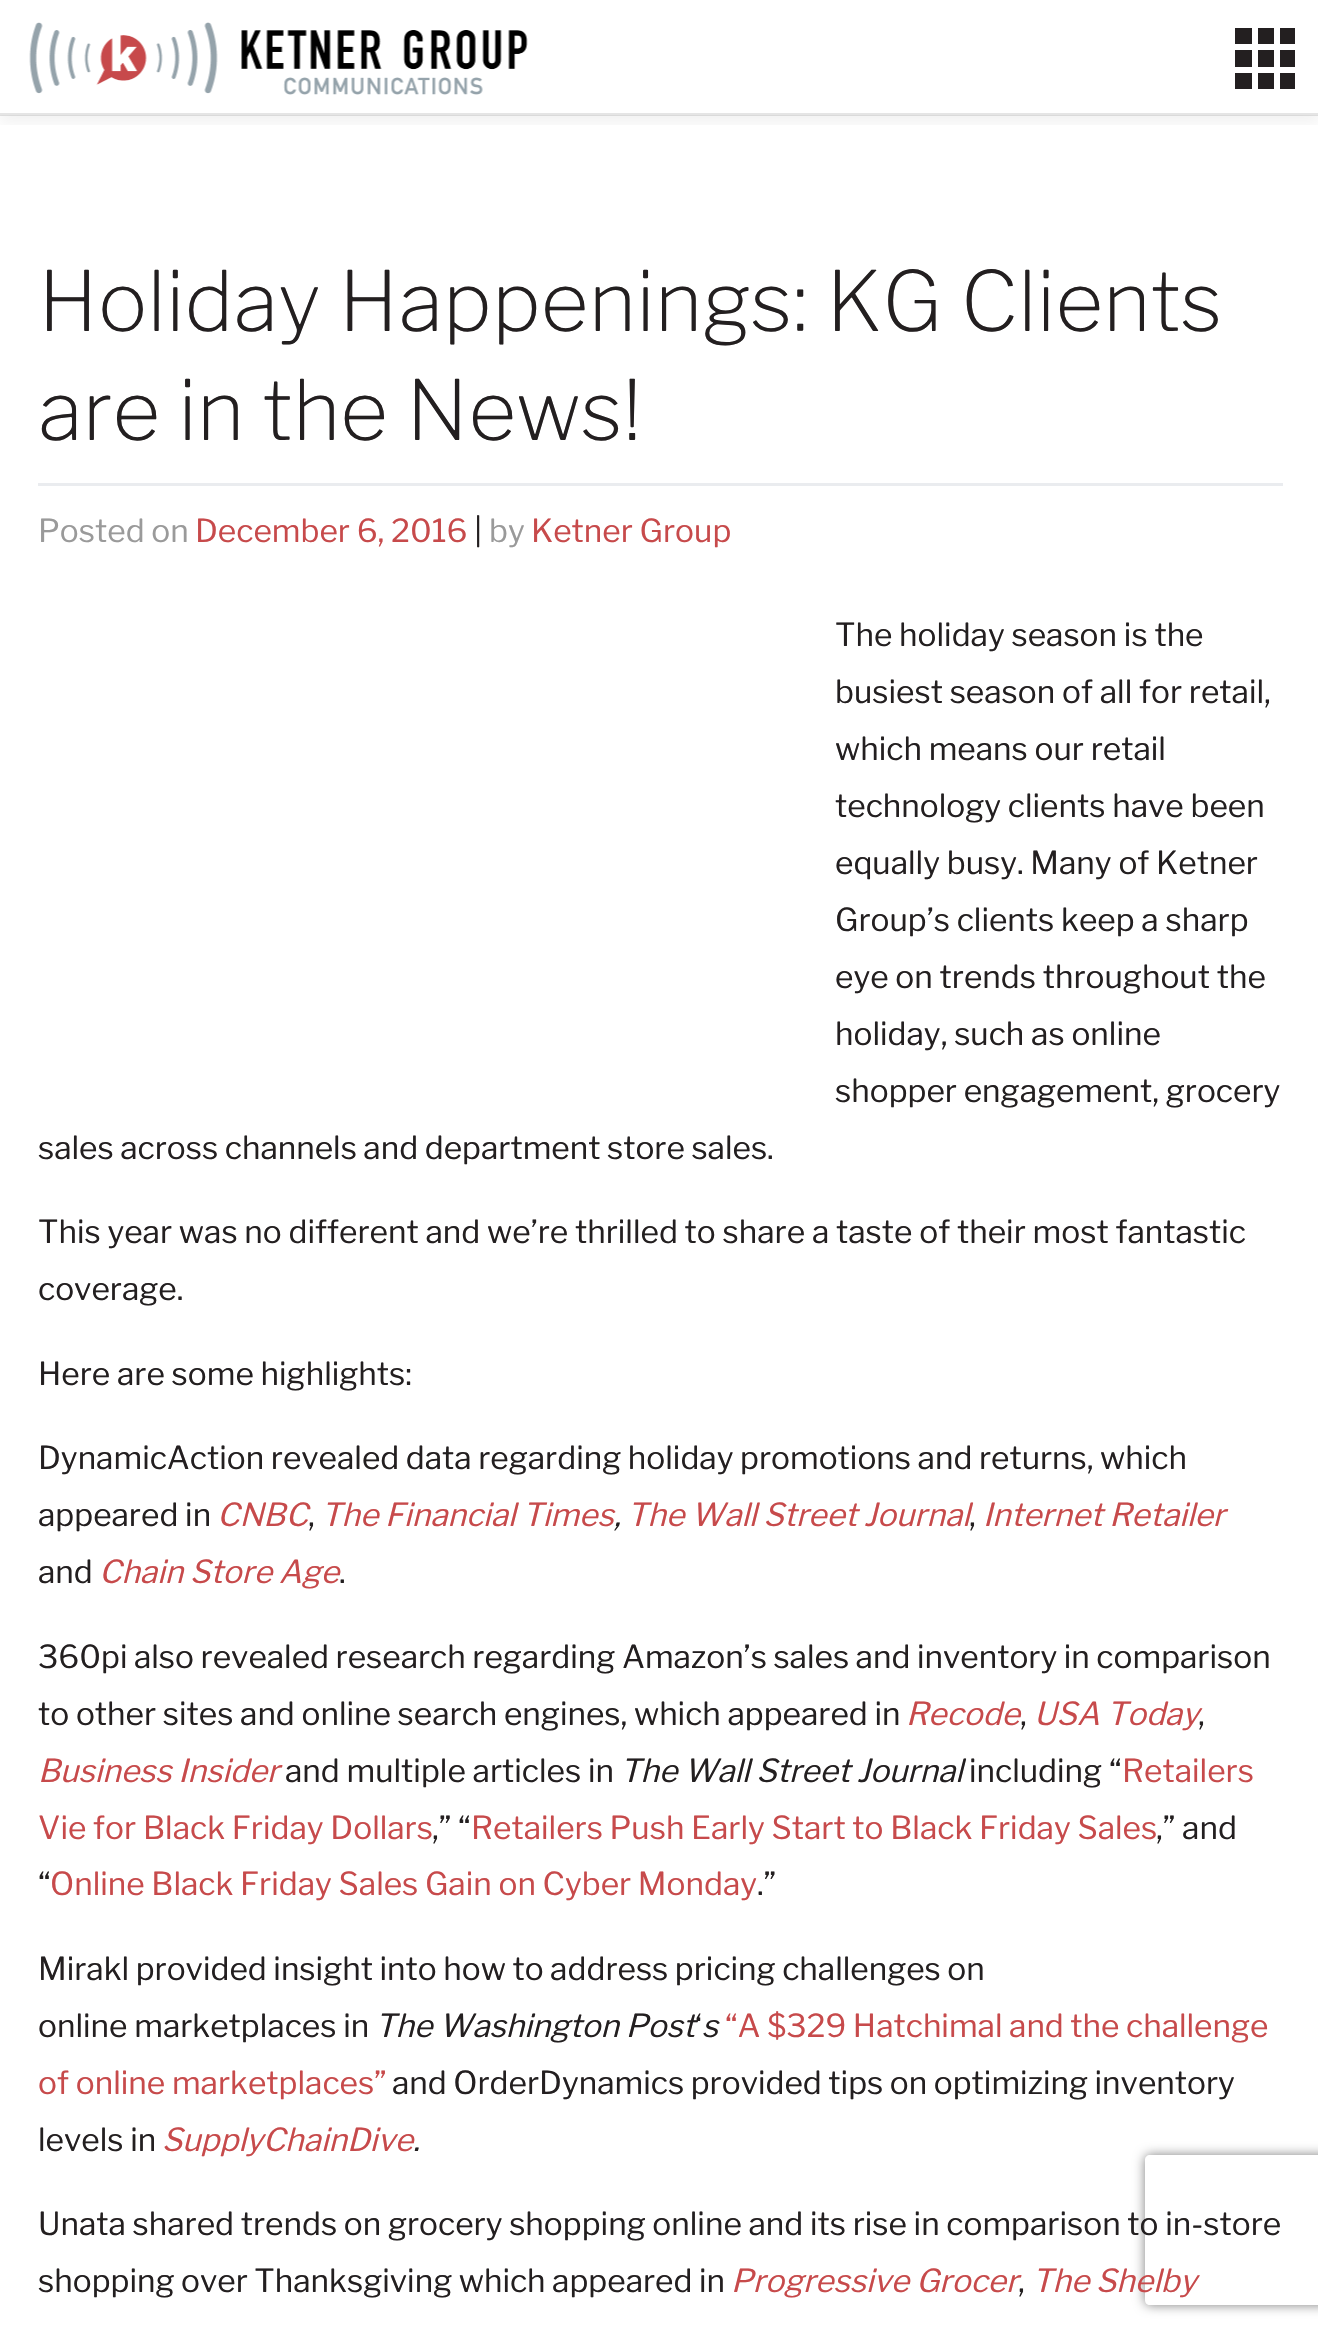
void draw(SkCanvas* canvas) {
	SkPaint fill;
	fill.setAntiAlias(true);
	auto makeFont = [&](const char* family, int weight, float size, bool italic = false) {
		SkFontStyle style(weight, SkFontStyle::kNormal_Width,
			italic ? SkFontStyle::kItalic_Slant : SkFontStyle::kUpright_Slant);
		SkFont result(fontMgr->matchFamilyStyle(family, style), size);
		result.setSubpixel(true);
		return result;
	};
	auto text = [&](const char* s, float x, float y, const SkFont& font) {
		canvas->drawString(s, x, y, font, fill);
	};
	auto spacedText = [&](const char* s, float x, float y, const SkFont& font, const SkPaint& ink, float letter, float word) {
		std::vector<SkGlyphID> glyphs(font.countText(s, strlen(s), SkTextEncoding::kUTF8));
		std::vector<float> xs(glyphs.size());
		font.textToGlyphs(s, strlen(s), SkTextEncoding::kUTF8, glyphs);
		font.getXPos(glyphs, xs, x);
		float extra = 0;
		for (size_t i = 0; i < glyphs.size(); i++) {
			xs[i] += extra;
			extra += letter + word * (glyphs[i] == font.unicharToGlyph(' '));
		}
		canvas->drawTextBlob(SkTextBlob::MakeFromPosHGlyphs(glyphs, xs, y, font), 0, 0, ink);
	};
	auto box = [&](float l, float t, float r, float b) {
		canvas->drawRect(SkRect::MakeLTRB(l, t, r, b), fill);
	};
	auto picture = [&](const char* path, float l, float t, float r, float b) {
		auto image = SkImages::DeferredFromEncodedData(SkData::MakeFromFileName(path));
		canvas->drawImageRect(image, SkRect::MakeLTRB(l, t, r, b), SkSamplingOptions());
	};
	canvas->clear(0xFFFFFFFF);
	canvas->save();
	canvas->clipRect(SkRect::MakeLTRB(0, 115, 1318, 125));
	fill.setColor(0x0D000000);
	fill.setMaskFilter(SkMaskFilter::MakeBlur(kNormal_SkBlurStyle, 7));
	canvas->drawRect(SkRect::MakeLTRB(0, 8, 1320, 123), fill);
	fill.setMaskFilter(nullptr);
	canvas->restore();
	fill.setColor(0x1A000000);
	box(0, 113, 1318, 116);
	picture("image0.png", 29, 22, 528, 95);
	fill.setColor(0xFF231F20);
	box(1235, 28, 1252, 44);
	box(1235, 50, 1252, 67);
	box(1235, 73, 1252, 89);
	box(1258, 28, 1274, 44);
	box(1258, 50, 1274, 67);
	box(1258, 73, 1274, 89);
	box(1280, 28, 1295, 44);
	box(1280, 50, 1295, 67);
	box(1280, 73, 1295, 89);
	fill.setColor(0xFFEAECEF);
	box(38, 483, 1283, 486);
	canvas->save();
	canvas->clipPath(SkPathBuilder(SkPathFillType::kEvenOdd).moveTo(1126, 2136).lineTo(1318, 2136).lineTo(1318, 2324).lineTo(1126, 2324).close().moveTo(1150, 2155).lineTo(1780, 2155).cubicTo(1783, 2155, 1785, 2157, 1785, 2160).lineTo(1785, 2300).cubicTo(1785, 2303, 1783, 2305, 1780, 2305).lineTo(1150, 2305).cubicTo(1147, 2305, 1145, 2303, 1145, 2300).lineTo(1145, 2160).cubicTo(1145, 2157, 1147, 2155, 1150, 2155).close().detach(), true);
	fill.setColor(0xFF808080);
	fill.setMaskFilter(SkMaskFilter::MakeBlur(kNormal_SkBlurStyle, 6));
	canvas->drawRoundRect(SkRect::MakeLTRB(1145, 2155, 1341, 2305), 5, 5, fill);
	fill.setMaskFilter(nullptr);
	canvas->restore();
	auto font1 = makeFont("Libre Franklin", 200, 82.5f);
	fill.setColor(0xFF231F20);
	text("Holiday Happenings: KG Clients", 38, 331, font1);
	text("are in the News!", 38, 440, font1);
	auto font2 = makeFont("Libre Franklin", 400, 31.65f);
	fill.setColor(0xFF9A9A9A);
	text("Posted on", 38, 542, font2);
	fill.setColor(0xFFC74A4B);
	text("December 6, 2016", 195, 542, font2);
	fill.setColor(0xFF231F20);
	text("|", 474, 542, font2);
	fill.setColor(0xFF9A9A9A);
	text("by", 489, 542, font2);
	fill.setColor(0xFFC74A4B);
	text("Ketner Group", 531, 542, font2);
	fill.setColor(0xFF231F20);
	text("The holiday season is the", 835, 646, font2);
	text("busiest season of all for retail,", 835, 703, font2);
	text("which means our retail", 835, 760, font2);
	text("technology clients have been", 835, 817, font2);
	text("equally busy. Many of Ketner", 835, 874, font2);
	text("Group’s clients keep a sharp", 835, 931, font2);
	text("eye on trends throughout the", 835, 988, font2);
	text("holiday, such as online", 835, 1045, font2);
	text("shopper engagement, grocery", 835, 1102, font2);
	spacedText("sales across channels and department store sales.", 38, 1159, font2, fill, 0, -0.25f);
	text("This year was no different and we’re thrilled to share a taste of their most fantastic", 38, 1243, font2);
	text("coverage.", 38, 1300, font2);
	text("Here are some highlights:", 38, 1385, font2);
	spacedText("DynamicAction revealed data regarding holiday promotions and returns, which", 38, 1469, font2, fill, 0, -0.25f);
	text("appeared in", 38, 1526, font2);
	auto font3 = makeFont("Libre Franklin", 400, 31.65f, true);
	fill.setColor(0xFFC74A4B);
	text("CNBC", 217, 1526, font3);
	text("The Financial Times", 321, 1526, font3);
	text("The Wall Street Journal", 627, 1526, font3);
	text("Internet Retailer", 983, 1526, font3);
	fill.setColor(0xFF231F20);
	text(",", 308, 1526, font2);
	text(",", 614, 1526, font3);
	text(",", 969, 1526, font2);
	text("and", 38, 1583, font2);
	fill.setColor(0xFFC74A4B);
	text("Chain Store Age", 99, 1583, font3);
	fill.setColor(0xFF231F20);
	text(".", 339, 1583, font2);
	spacedText("360pi also revealed research regarding Amazon’s sales and inventory in comparison", 38, 1668, font2, fill, 0, -0.25f);
	spacedText("to other sites and online search engines, which appeared in", 38, 1725, font2, fill, 0, -0.1f);
	fill.setColor(0xFFC74A4B);
	text("Recode", 906, 1725, font3);
	fill.setColor(0xFF231F20);
	text(",", 1020, 1725, font2);
	fill.setColor(0xFFC74A4B);
	text("USA Today", 1034, 1725, font3);
	fill.setColor(0xFF231F20);
	text(",", 1198, 1725, font2);
	fill.setColor(0xFFC74A4B);
	text("Business Insider", 38, 1782, font3);
	fill.setColor(0xFF231F20);
	text("and multiple articles in", 285, 1782, font2);
	text("The Wall Street Journal", 620, 1782, font3);
	text("including “", 969, 1782, font2);
	fill.setColor(0xFFC74A4B);
	text("Retailers", 1122, 1782, font2);
	text("Vie for Black Friday Dollars", 38, 1839, font2);
	fill.setColor(0xFF231F20);
	text(",” “", 432, 1839, font2);
	fill.setColor(0xFFC74A4B);
	spacedText("Retailers Push Early Start to Black Friday Sales", 471, 1839, font2, fill, 0, -0.1f);
	fill.setColor(0xFF231F20);
	text(",” and", 1156, 1839, font2);
	text("“", 38, 1895, font2);
	fill.setColor(0xFFC74A4B);
	spacedText("Online Black Friday Sales Gain on Cyber Monday", 50, 1895, font2, fill, 0, -0.1f);
	fill.setColor(0xFF231F20);
	text(".”", 757, 1895, font2);
	spacedText("Mirakl provided insight into how to address pricing challenges on", 38, 1980, font2, fill, 0, -0.25f);
	text("online marketplaces in", 38, 2037, font2);
	text("The Washington Post s", 375, 2037, font3);
	fill.setColor(0xFFC74A4B);
	spacedText("“A $329 Hatchimal and the challenge", 725, 2037, font2, fill, 0, -0.25f);
	fill.setColor(0xFF231F20);
	text("‘", 695, 2037, font2);
	fill.setColor(0xFFC74A4B);
	text("of online marketplaces”", 38, 2094, font2);
	fill.setColor(0xFF231F20);
	spacedText("and OrderDynamics provided tips on optimizing inventory", 392, 2094, font2, fill, 0, -0.25f);
	text("levels in", 38, 2151, font2);
	fill.setColor(0xFFC74A4B);
	text("SupplyChainDive", 162, 2151, font3);
	fill.setColor(0xFF231F20);
	text(".", 413, 2151, font3);
	spacedText("Unata shared trends on grocery shopping online and its rise in comparison to in-store", 38, 2235, font2, fill, 0, -0.1f);
	spacedText("shopping over Thanksgiving which appeared in", 38, 2292, font2, fill, 0, -0.25f);
	fill.setColor(0xFFC74A4B);
	text("Progressive Grocer", 731, 2292, font3);
	text("The Shelby", 1032, 2292, font3);
	fill.setColor(0xFF231F20);
	text(",", 1018, 2292, font2);
}
